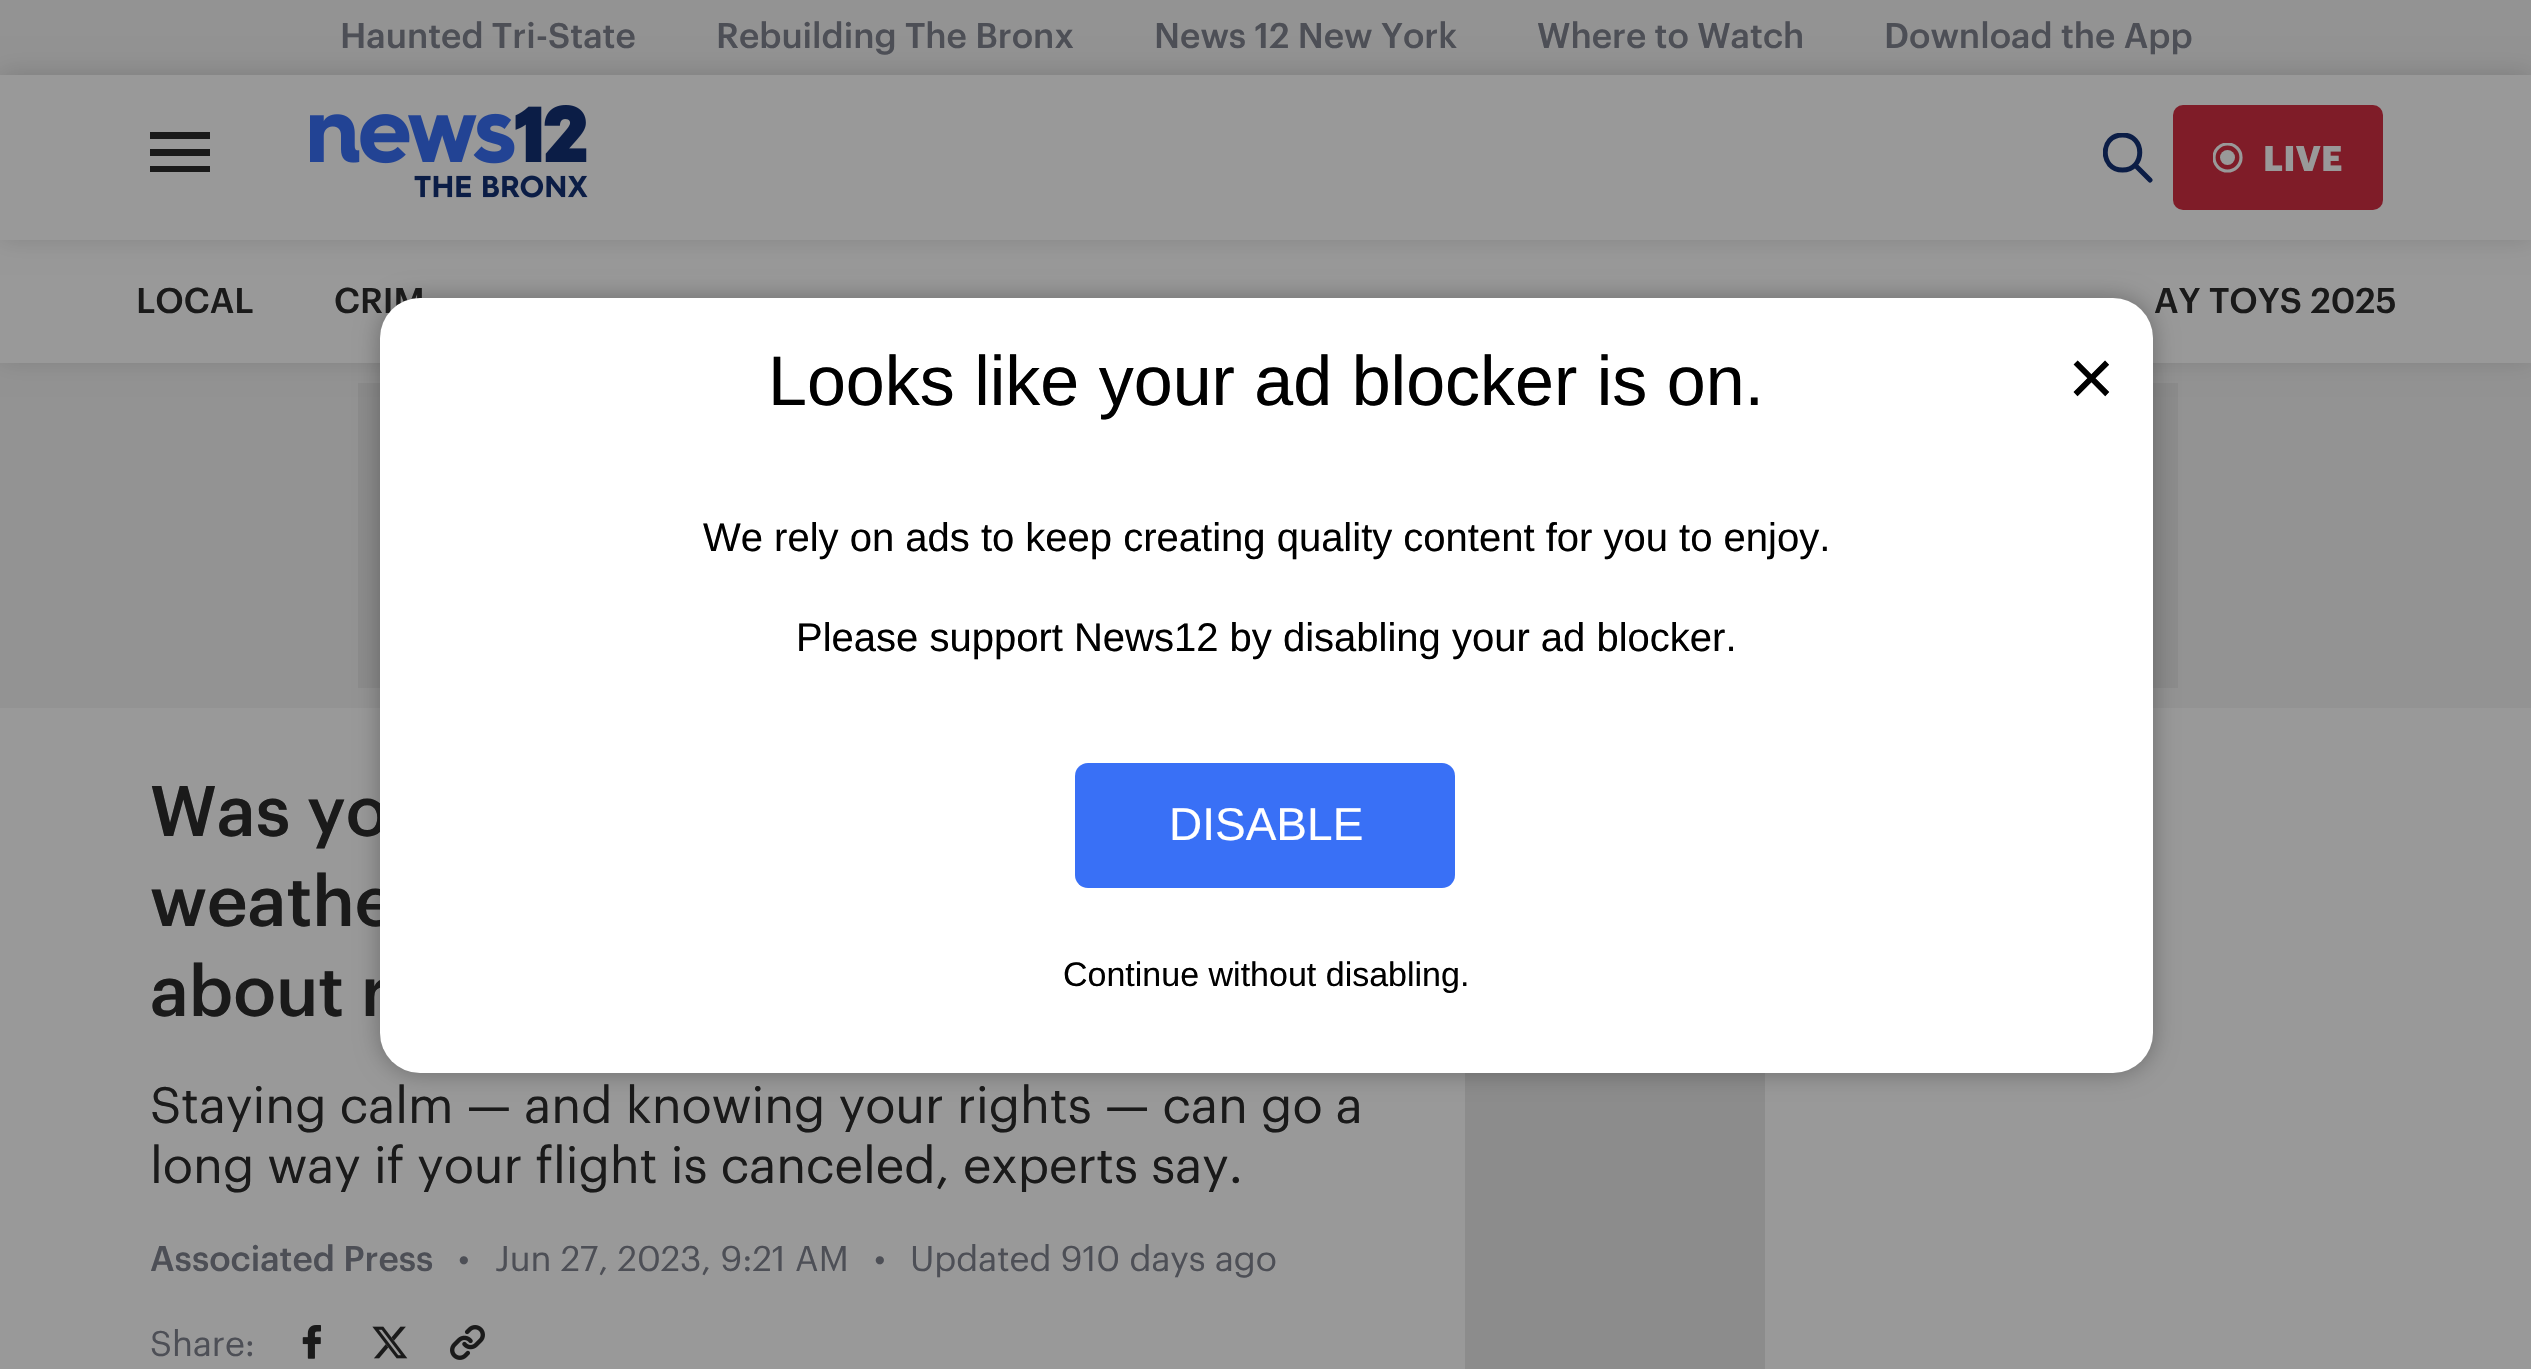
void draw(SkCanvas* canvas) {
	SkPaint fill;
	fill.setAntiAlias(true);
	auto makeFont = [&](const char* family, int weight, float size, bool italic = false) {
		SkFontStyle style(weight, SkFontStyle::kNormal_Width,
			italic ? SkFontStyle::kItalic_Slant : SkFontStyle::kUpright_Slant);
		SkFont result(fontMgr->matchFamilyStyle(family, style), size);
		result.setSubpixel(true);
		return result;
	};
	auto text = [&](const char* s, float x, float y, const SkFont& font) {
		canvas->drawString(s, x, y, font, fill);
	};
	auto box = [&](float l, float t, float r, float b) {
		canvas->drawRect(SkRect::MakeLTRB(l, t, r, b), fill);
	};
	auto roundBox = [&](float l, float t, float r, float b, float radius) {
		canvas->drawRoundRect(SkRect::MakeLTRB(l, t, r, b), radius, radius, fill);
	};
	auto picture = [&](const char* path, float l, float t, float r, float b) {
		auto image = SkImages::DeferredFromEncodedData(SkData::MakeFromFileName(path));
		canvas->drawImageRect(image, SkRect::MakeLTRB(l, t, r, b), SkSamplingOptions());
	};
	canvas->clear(0xFF999999);
	fill.setColor(0xFF939393);
	box(0, 363, 2531, 708);
	fill.setColor(0xFF8C8C8C);
	box(358, 383, 2178, 688);
	fill.setColor(0x26000000);
	fill.setMaskFilter(SkMaskFilter::MakeBlur(kNormal_SkBlurStyle, 12.5f));
	canvas->drawRect(SkRect::MakeLTRB(0, -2, 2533, 360), fill);
	fill.setMaskFilter(nullptr);
	fill.setColor(0xFF999999);
	box(0, 75, 2531, 363);
	fill.setColor(0xFF939393);
	box(0, 0, 2531, 75);
	canvas->save();
	canvas->clipPath(SkPathBuilder(SkPathFillType::kEvenOdd).moveTo(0, 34).lineTo(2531, 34).lineTo(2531, 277).lineTo(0, 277).close().moveTo(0, 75).lineTo(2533, 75).lineTo(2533, 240).lineTo(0, 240).close().detach(), true);
	fill.setColor(0x26000000);
	fill.setMaskFilter(SkMaskFilter::MakeBlur(kNormal_SkBlurStyle, 12.5f));
	canvas->drawRect(SkRect::MakeLTRB(0, 73, 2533, 238), fill);
	fill.setMaskFilter(nullptr);
	canvas->restore();
	fill.setColor(0xFF1A1A1A);
	canvas->drawPath(SkPathBuilder(SkPathFillType::kEvenOdd).moveTo(150, 139).lineTo(150, 132).lineTo(210, 132).lineTo(210, 139).close().moveTo(150, 156).lineTo(210, 156).lineTo(210, 149).lineTo(150, 149).close().moveTo(150, 172).lineTo(210, 172).lineTo(210, 166).lineTo(150, 166).close().detach(), fill);
	picture("image0.png", 310, 105, 588, 198);
	canvas->save();
	canvas->clipRect(SkRect::MakeLTRB(2103, 133, 2153, 183));
	fill.setStyle(SkPaint::kStroke_Style);
	fill.setStrokeWidth(5);
	fill.setStrokeCap(SkPaint::kRound_Cap);
	fill.setStrokeJoin(SkPaint::kRound_Join);
	fill.setColor(0xFF0B1D46);
	canvas->drawPath(SkPathBuilder().moveTo(2135, 165).lineTo(2150, 180).moveTo(2122.5f, 170).cubicTo(2099.5f, 170, 2099.5f, 135, 2122.5f, 135).cubicTo(2145.5f, 135, 2145.5f, 170, 2122.5f, 170).close().detach(), fill);
	canvas->restore();
	fill.setStyle(SkPaint::kFill_Style);
	fill.setColor(0xFF7F1C28);
	roundBox(2173, 105, 2383, 210, 10);
	fill.setColor(0xFF999999);
	canvas->drawCircle(2227.5f, 157.5f, 7.5f, fill);
	canvas->save();
	canvas->clipRect(SkRect::MakeLTRB(2213, 143, 2243, 173));
	fill.setStyle(SkPaint::kStroke_Style);
	fill.setStrokeWidth(3.2f);
	fill.setStrokeCap(SkPaint::kButt_Cap);
	fill.setStrokeJoin(SkPaint::kMiter_Join);
	canvas->drawCircle(2227.5f, 157.5f, 13.5f, fill);
	canvas->restore();
	picture("image1.png", 302, 1325, 321, 1359);
	picture("image2.png", 372, 1326, 408, 1359);
	picture("image3.png", 450, 1325, 485, 1360);
	fill.setStyle(SkPaint::kFill_Style);
	fill.setColor(0xFF8C8C8C);
	box(1465, 1073, 1765, 1369);
	fill.setColor(0x4D000000);
	fill.setMaskFilter(SkMaskFilter::MakeBlur(kNormal_SkBlurStyle, 12.5f));
	canvas->drawRoundRect(SkRect::MakeLTRB(380, 298, 2153, 1073), 40, 40, fill);
	fill.setMaskFilter(nullptr);
	auto font1 = makeFont("Graphik", 500, 35);
	fill.setColor(0xFF4D4F56);
	text("Haunted Tri-State", 340, 48, font1);
	text("Rebuilding The Bronx", 716, 48, font1);
	text("News 12 New York", 1154, 48, font1);
	text("Where to Watch", 1537, 48, font1);
	text("Download the App", 1884, 48, font1);
	auto font2 = makeFont("Graphik", 700, 35);
	fill.setColor(0xFF999999);
	text("LIVE", 2263, 171, font2);
	fill.setColor(0xFF1A1A1A);
	text("LOCAL", 136, 313, font1);
	text("CRIM", 334, 313, font1);
	text("AY TOYS 2025", 2154, 313, font1);
	auto font3 = makeFont("Graphik", 500, 70);
	text("Was yo", 150, 836, font3);
	text("weathe", 150, 926, font3);
	text("about r", 150, 1016, font3);
	auto font4 = makeFont("Graphik", 400, 50);
	text("Staying calm — and knowing your rights — can go a", 150, 1123, font4);
	text("long way if your flight is canceled, experts say.", 150, 1183, font4);
	fill.setColor(0xFF4D4F56);
	text("Associated Press", 150, 1271, font1);
	auto font5 = makeFont("Graphik", 400, 35);
	text("•", 458, 1271, font5);
	text("Jun 27, 2023, 9:21 AM", 495, 1271, font5);
	text("•", 874, 1271, font5);
	text("Updated 910 days ago", 910, 1271, font5);
	text("Share:", 150, 1356, font5);
	fill.setColor(0xFFFFFFFF);
	roundBox(380, 298, 2153, 1073, 40);
	auto font6 = makeFont("Liberation Sans", 400, 70);
	fill.setColor(0xFF000000);
	text("Looks like your ad blocker is on.", 768, 405, font6);
	auto font7 = makeFont("Liberation Sans", 400, 80);
	text("×", 2068, 405, font7);
	auto font8 = makeFont("Liberation Sans", 400, 40);
	text("We rely on ads to keep creating quality content for you to enjoy.", 703, 551, font8);
	text("Please support News12 by disabling your ad blocker.", 796, 651, font8);
	fill.setColor(0xFF3970F6);
	roundBox(1075, 763, 1455, 888, 13);
	auto font9 = makeFont("Liberation Sans", 400, 46);
	fill.setColor(0xFFFFFFFF);
	text("DISABLE", 1169, 840, font9);
	auto font10 = makeFont("Liberation Sans", 400, 34);
	fill.setColor(0xFF000000);
	text("Continue without disabling.", 1063, 986, font10);
}
